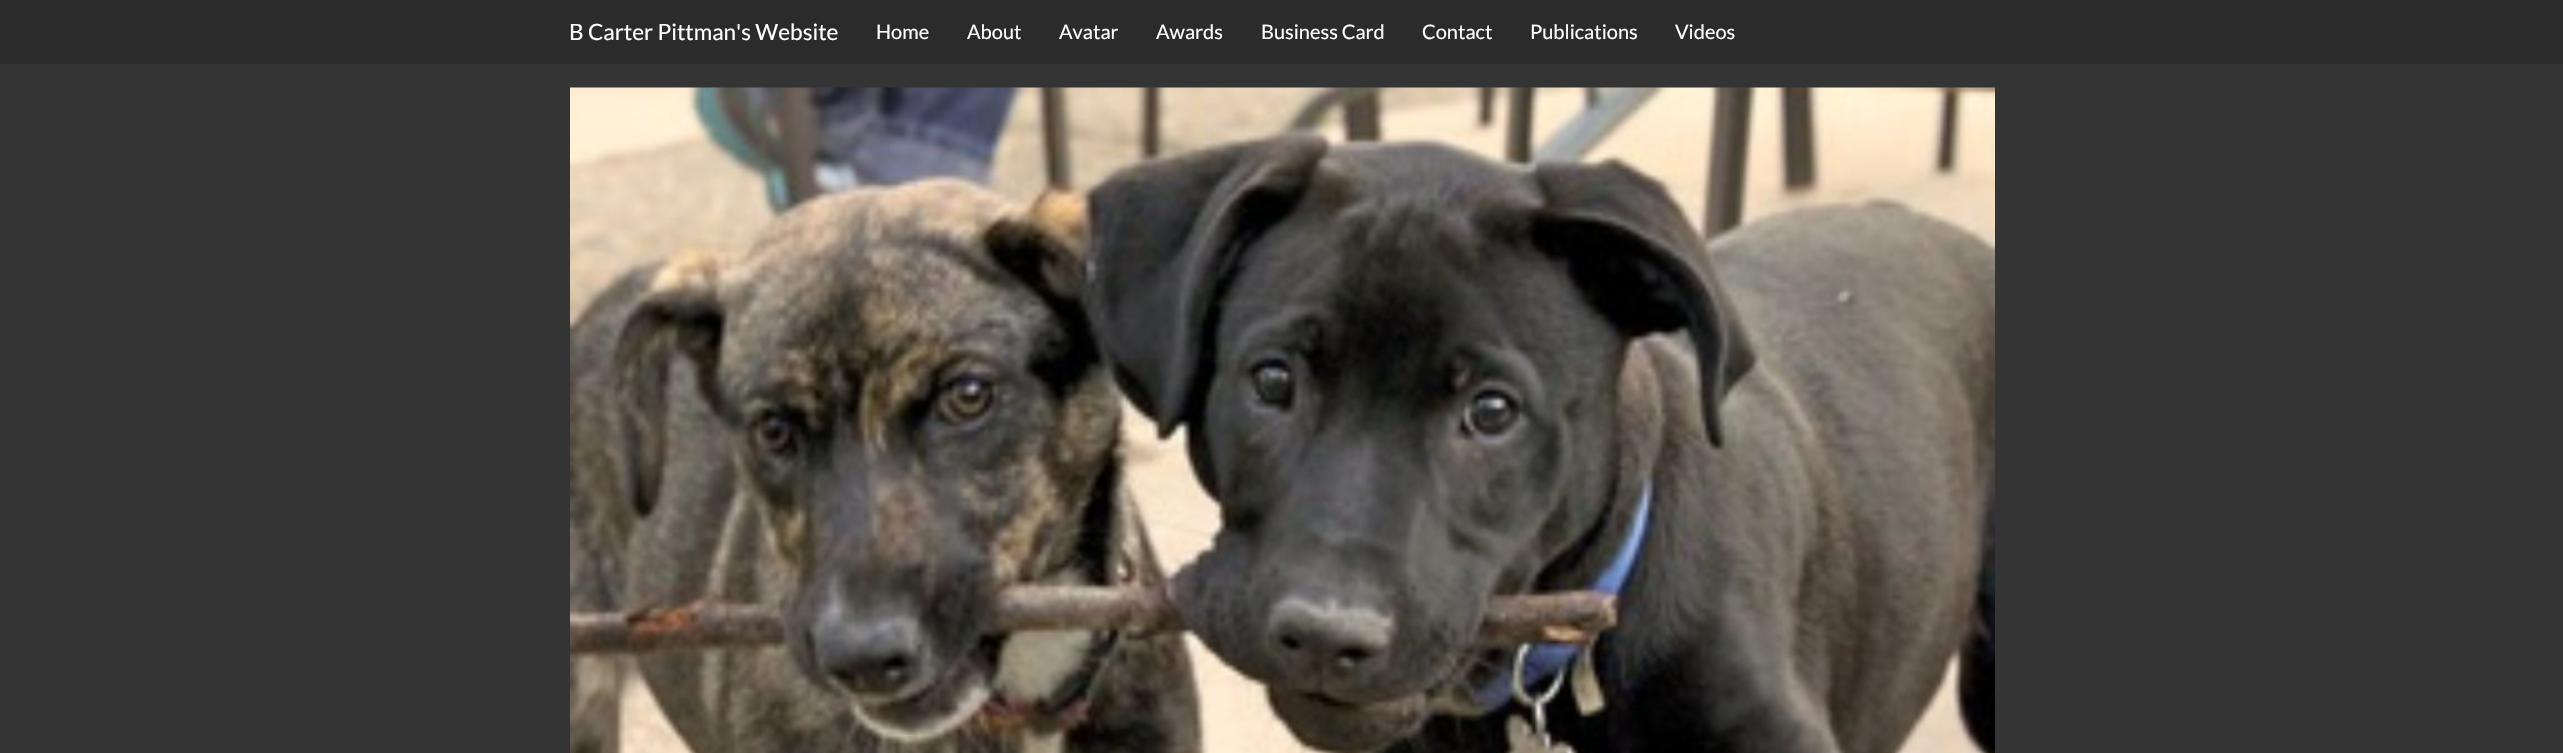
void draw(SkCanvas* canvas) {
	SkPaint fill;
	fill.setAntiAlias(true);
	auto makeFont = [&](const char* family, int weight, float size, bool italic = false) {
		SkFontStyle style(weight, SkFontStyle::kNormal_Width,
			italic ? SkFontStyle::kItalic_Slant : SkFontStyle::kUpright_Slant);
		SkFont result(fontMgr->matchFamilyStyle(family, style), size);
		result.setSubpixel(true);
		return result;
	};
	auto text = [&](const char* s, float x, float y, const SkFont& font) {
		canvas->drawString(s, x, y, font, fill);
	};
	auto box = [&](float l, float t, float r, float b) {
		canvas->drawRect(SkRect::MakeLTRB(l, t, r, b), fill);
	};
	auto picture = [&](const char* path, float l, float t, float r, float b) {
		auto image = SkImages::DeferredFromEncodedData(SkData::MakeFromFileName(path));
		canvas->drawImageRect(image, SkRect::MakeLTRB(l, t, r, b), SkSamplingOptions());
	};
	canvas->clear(0xFF343434);
	fill.setColor(0xFF2B2B2B);
	box(0, 0, 2563, 64);
	picture("image0.png", 570, 87, 1995, 753);
	auto font1 = makeFont("Lato", 400, 22.5f);
	fill.setColor(0xFFFFFFFF);
	text("B Carter Pittman's Website", 569, 40, font1);
	auto font2 = makeFont("Lato", 400, 20);
	text("Home", 876, 39, font2);
	text("About", 967, 39, font2);
	text("Avatar", 1059, 39, font2);
	text("Awards", 1156, 39, font2);
	text("Business Card", 1261, 39, font2);
	text("Contact", 1422, 39, font2);
	text("Publications", 1530, 39, font2);
	text("Videos", 1675, 39, font2);
}
